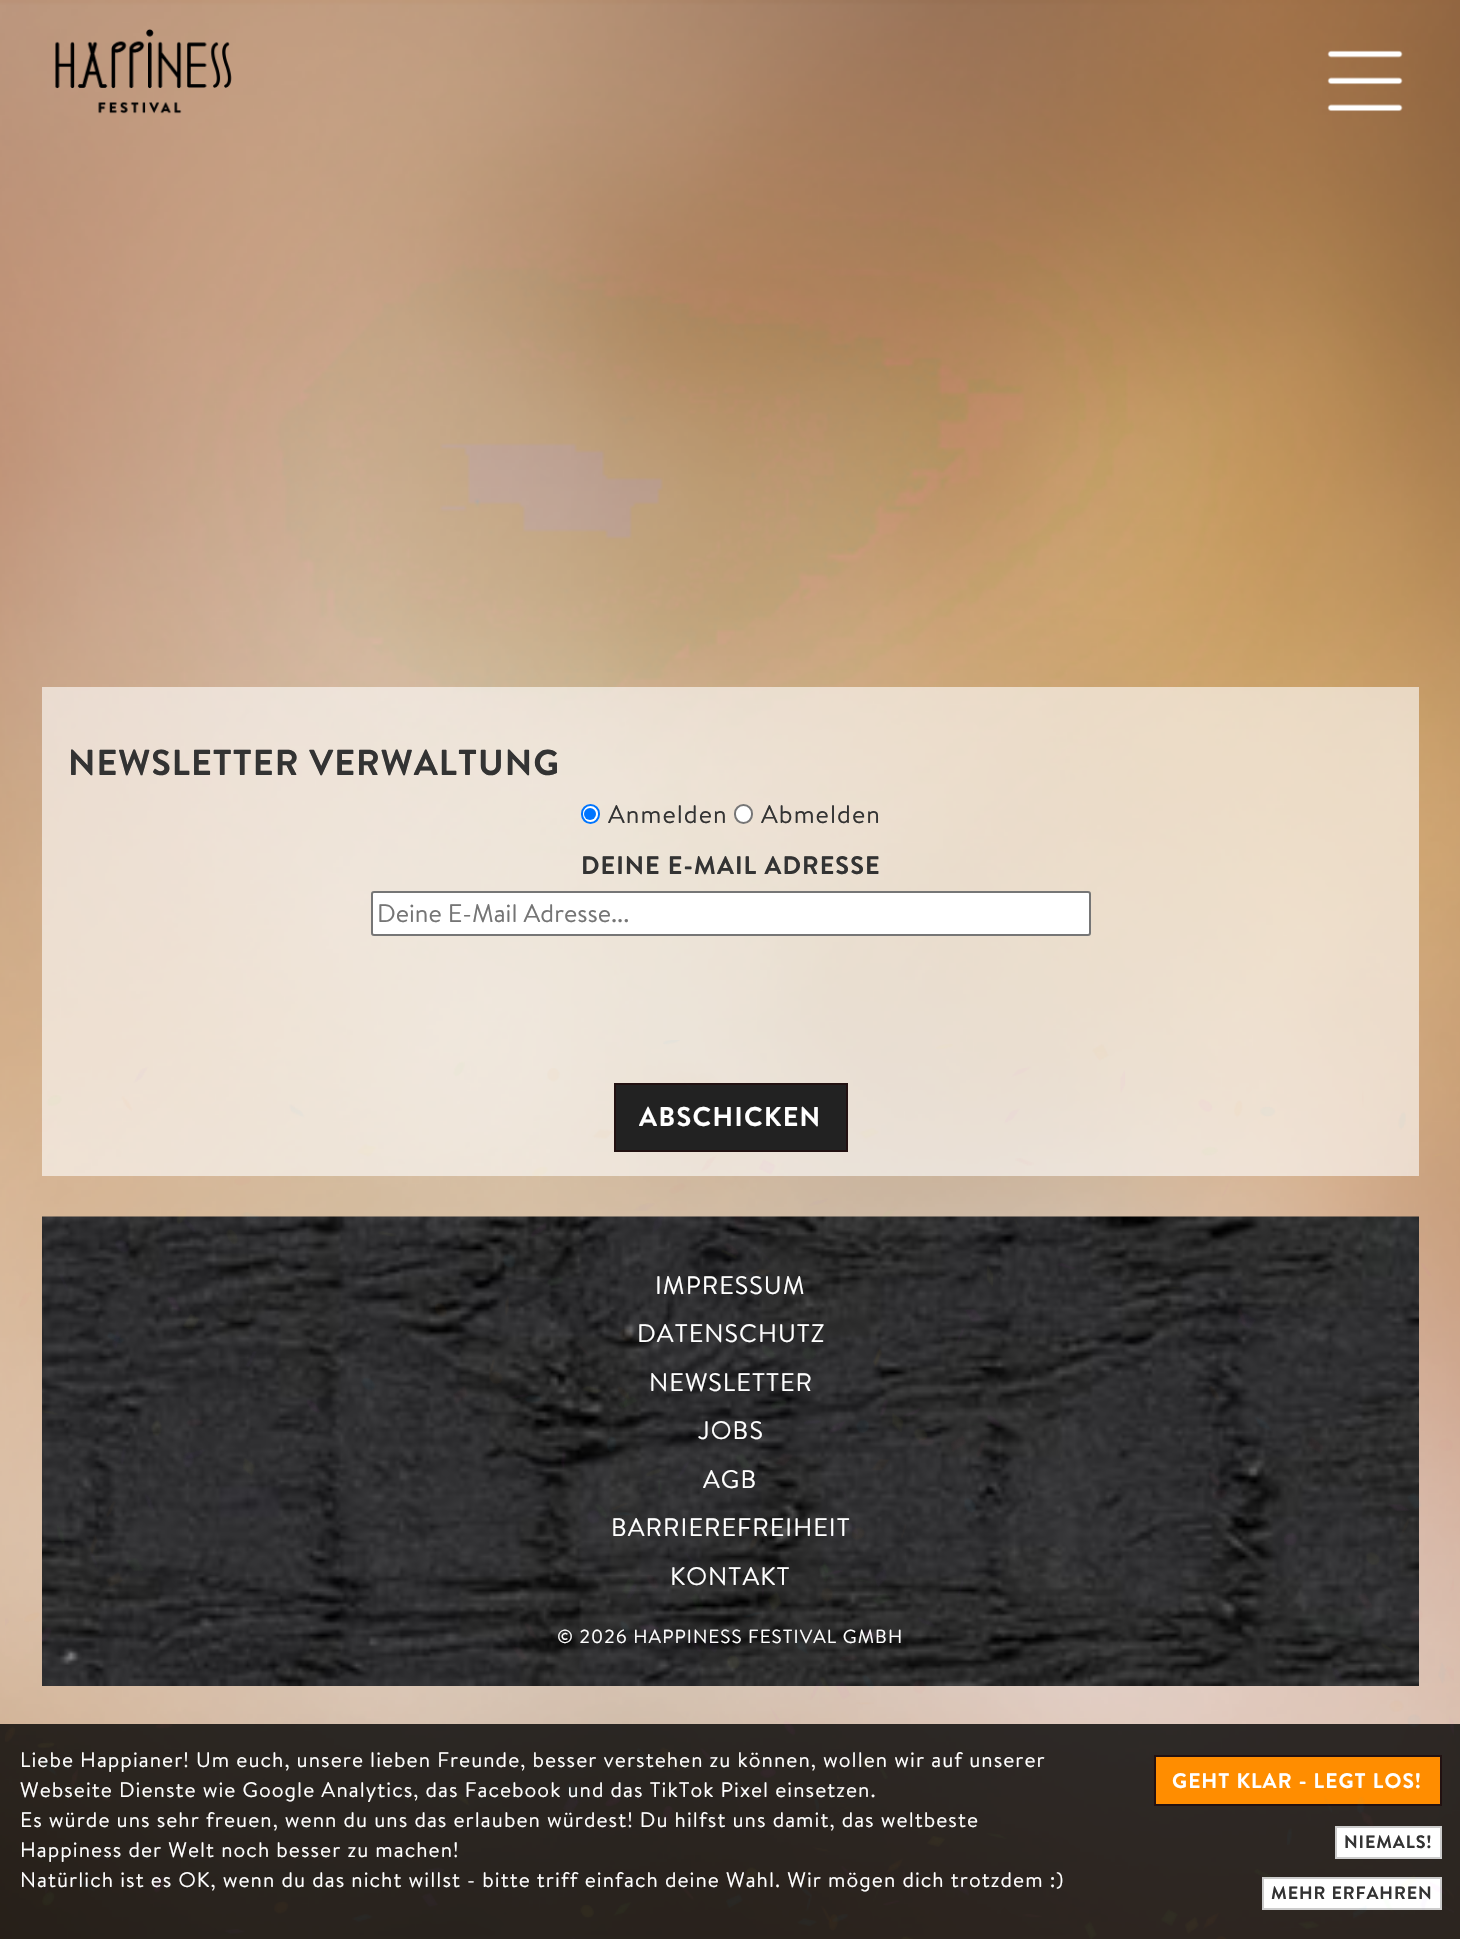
void draw(SkCanvas* canvas) {
	SkPaint fill;
	fill.setAntiAlias(true);
	auto makeFont = [&](const char* family, int weight, float size, bool italic = false) {
		SkFontStyle style(weight, SkFontStyle::kNormal_Width,
			italic ? SkFontStyle::kItalic_Slant : SkFontStyle::kUpright_Slant);
		SkFont result(fontMgr->matchFamilyStyle(family, style), size);
		result.setSubpixel(true);
		return result;
	};
	auto text = [&](const char* s, float x, float y, const SkFont& font) {
		canvas->drawString(s, x, y, font, fill);
	};
	auto spacedText = [&](const char* s, float x, float y, const SkFont& font, const SkPaint& ink, float letter, float word) {
		std::vector<SkGlyphID> glyphs(font.countText(s, strlen(s), SkTextEncoding::kUTF8));
		std::vector<float> xs(glyphs.size());
		font.textToGlyphs(s, strlen(s), SkTextEncoding::kUTF8, glyphs);
		font.getXPos(glyphs, xs, x);
		float extra = 0;
		for (size_t i = 0; i < glyphs.size(); i++) {
			xs[i] += extra;
			extra += letter + word * (glyphs[i] == font.unicharToGlyph(' '));
		}
		canvas->drawTextBlob(SkTextBlob::MakeFromPosHGlyphs(glyphs, xs, y, font), 0, 0, ink);
	};
	auto box = [&](float l, float t, float r, float b) {
		canvas->drawRect(SkRect::MakeLTRB(l, t, r, b), fill);
	};
	auto picture = [&](const char* path, float l, float t, float r, float b) {
		auto image = SkImages::DeferredFromEncodedData(SkData::MakeFromFileName(path));
		canvas->drawImageRect(image, SkRect::MakeLTRB(l, t, r, b), SkSamplingOptions());
	};
	canvas->clear(0xFFFFFFFF);
	picture("image0.png", 0, 0, 1460, 1939);
	picture("image1.png", 1327, 50, 1403, 112);
	picture("image2.png", 55, 29, 232, 114);
	fill.setColor(0x99FFFFFF);
	box(42, 687, 1419, 1176);
	fill.setColor(0xFFFFFFFF);
	canvas->drawRoundRect(SkRect::MakeLTRB(582, 805, 599, 823), 8.5f, 8.5f, fill);
	fill.setStyle(SkPaint::kStroke_Style);
	fill.setStrokeWidth(2);
	fill.setColor(0xFF0075FF);
	canvas->drawRoundRect(SkRect::MakeLTRB(582, 805, 599, 823), 8.5f, 8.5f, fill);
	fill.setStyle(SkPaint::kFill_Style);
	canvas->drawCircle(590, 814, 6, fill);
	fill.setColor(0xFFFFFFFF);
	canvas->drawRoundRect(SkRect::MakeLTRB(735, 805, 752, 823), 8.5f, 8.5f, fill);
	fill.setStyle(SkPaint::kStroke_Style);
	fill.setColor(0xFF767676);
	canvas->drawRoundRect(SkRect::MakeLTRB(735, 805, 752, 823), 8.5f, 8.5f, fill);
	fill.setStyle(SkPaint::kFill_Style);
	fill.setColor(0xFFFFFFFF);
	canvas->drawRoundRect(SkRect::MakeLTRB(372, 892, 1090, 935), 2, 2, fill);
	fill.setStyle(SkPaint::kStroke_Style);
	fill.setColor(0xFF767676);
	canvas->drawRoundRect(SkRect::MakeLTRB(372, 892, 1090, 935), 2, 2, fill);
	fill.setStyle(SkPaint::kFill_Style);
	fill.setColor(0xFF222222);
	canvas->drawRect(SkRect::MakeLTRB(615, 1084, 847, 1151), fill);
	fill.setStyle(SkPaint::kStroke_Style);
	fill.setColor(0xFF221111);
	canvas->drawRect(SkRect::MakeLTRB(615, 1084, 847, 1151), fill);
	picture("image3.png", 42, 1216, 1419, 1686);
	fill.setStyle(SkPaint::kFill_Style);
	fill.setColor(0xCC000000);
	box(0, 1724, 1460, 1939);
	fill.setColor(0xFFFF8D00);
	canvas->drawRect(SkRect::MakeLTRB(1155, 1756, 1441, 1805), fill);
	fill.setStyle(SkPaint::kStroke_Style);
	fill.setColor(0xFF221111);
	canvas->drawRect(SkRect::MakeLTRB(1155, 1756, 1441, 1805), fill);
	fill.setStyle(SkPaint::kFill_Style);
	fill.setColor(0xFFFFFFFF);
	canvas->drawRect(SkRect::MakeLTRB(1336, 1827, 1441, 1858), fill);
	fill.setStyle(SkPaint::kStroke_Style);
	fill.setColor(0xFFCCCCCC);
	canvas->drawRect(SkRect::MakeLTRB(1336, 1827, 1441, 1858), fill);
	fill.setStyle(SkPaint::kFill_Style);
	fill.setColor(0xFFFFFFFF);
	canvas->drawRect(SkRect::MakeLTRB(1263, 1878, 1441, 1909), fill);
	fill.setStyle(SkPaint::kStroke_Style);
	fill.setColor(0xFFCCCCCC);
	canvas->drawRect(SkRect::MakeLTRB(1263, 1878, 1441, 1909), fill);
	auto font1 = makeFont("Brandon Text", 700, 36);
	fill.setStyle(SkPaint::kFill_Style);
	fill.setColor(0xFF333333);
	spacedText("NEWSLETTER VERWALTUNG", 68, 775, font1, fill, 1.05f, 0);
	auto font2 = makeFont("Brandon Text", 400, 25.25f);
	spacedText("Anmelden", 608, 823, font2, fill, 1.05f, 0);
	spacedText("Abmelden", 761, 823, font2, fill, 1.05f, 0);
	auto font3 = makeFont("Brandon Text", 700, 25.25f);
	spacedText("DEINE E-MAIL ADRESSE", 581, 874, font3, fill, 1.05f, 0);
	fill.setColor(0xFF757575);
	text("Deine E-Mail Adresse...", 377, 922, font2);
	auto font4 = makeFont("Brandon Text", 700, 27);
	fill.setColor(0xFFFFFFFF);
	spacedText("ABSCHICKEN", 639, 1126, font4, fill, 1.4f, 0);
	spacedText("IMPRESSUM", 655, 1294, font2, fill, 1.05f, 0);
	spacedText("DATENSCHUTZ", 637, 1342, font2, fill, 1.05f, 0);
	spacedText("NEWSLETTER", 649, 1391, font2, fill, 1.05f, 0);
	spacedText("JOBS", 698, 1439, font2, fill, 1.05f, 0);
	spacedText("AGB", 703, 1488, font2, fill, 1.05f, 0);
	spacedText("BARRIEREFREIHEIT", 611, 1536, font2, fill, 1.05f, 0);
	spacedText("KONTAKT", 670, 1585, font2, fill, 1.05f, 0);
	auto font5 = makeFont("Brandon Text", 400, 18.9f);
	spacedText("© 2026 HAPPINESS FESTIVAL GMBH", 557, 1643, font5, fill, 1.05f, 0);
	auto font6 = makeFont("Brandon Text", 400, 21);
	spacedText("Liebe Happianer! Um euch, unsere lieben Freunde, besser verstehen zu können, wollen wir auf unserer", 20, 1767, font6, fill, 1.05f, 0);
	spacedText("Webseite Dienste wie Google Analytics, das Facebook und das TikTok Pixel einsetzen.", 20, 1797, font6, fill, 1.05f, 0);
	spacedText("Es würde uns sehr freuen, wenn du uns das erlauben würdest! Du hilfst uns damit, das weltbeste", 20, 1827, font6, fill, 1.05f, 0);
	spacedText("Happiness der Welt noch besser zu machen!", 20, 1857, font6, fill, 1.05f, 0);
	spacedText("Natürlich ist es OK, wenn du das nicht willst - bitte triff einfach deine Wahl. Wir mögen dich trotzdem :)", 20, 1887, font6, fill, 1.05f, 0);
	auto font7 = makeFont("Brandon Text", 700, 21);
	spacedText("GEHT KLAR - LEGT LOS!", 1172, 1788, font7, fill, 1.05f, 0);
	auto font8 = makeFont("Brandon Text", 700, 18);
	fill.setColor(0xFF333333);
	spacedText("NIEMALS!", 1344, 1848, font8, fill, 0.9f, 0);
	spacedText("MEHR ERFAHREN", 1271, 1899, font8, fill, 0.9f, 0);
	picture("image4.png", 5, 1040, 1454, 1939);
}
